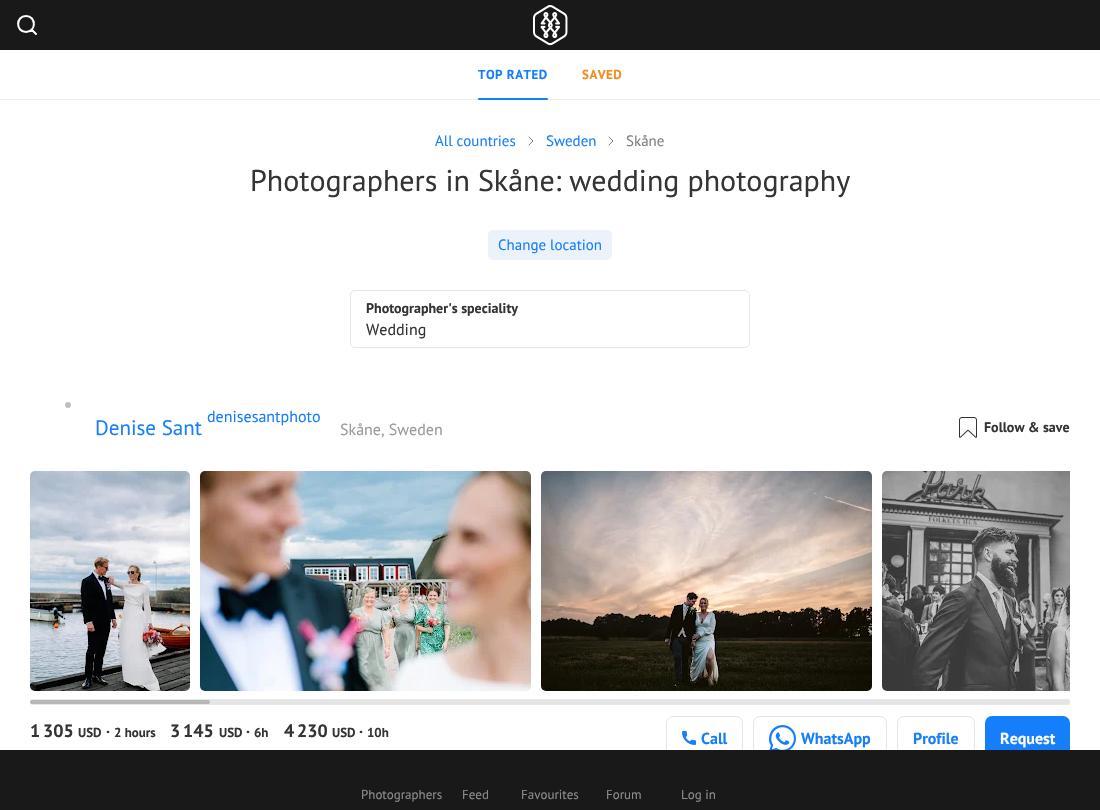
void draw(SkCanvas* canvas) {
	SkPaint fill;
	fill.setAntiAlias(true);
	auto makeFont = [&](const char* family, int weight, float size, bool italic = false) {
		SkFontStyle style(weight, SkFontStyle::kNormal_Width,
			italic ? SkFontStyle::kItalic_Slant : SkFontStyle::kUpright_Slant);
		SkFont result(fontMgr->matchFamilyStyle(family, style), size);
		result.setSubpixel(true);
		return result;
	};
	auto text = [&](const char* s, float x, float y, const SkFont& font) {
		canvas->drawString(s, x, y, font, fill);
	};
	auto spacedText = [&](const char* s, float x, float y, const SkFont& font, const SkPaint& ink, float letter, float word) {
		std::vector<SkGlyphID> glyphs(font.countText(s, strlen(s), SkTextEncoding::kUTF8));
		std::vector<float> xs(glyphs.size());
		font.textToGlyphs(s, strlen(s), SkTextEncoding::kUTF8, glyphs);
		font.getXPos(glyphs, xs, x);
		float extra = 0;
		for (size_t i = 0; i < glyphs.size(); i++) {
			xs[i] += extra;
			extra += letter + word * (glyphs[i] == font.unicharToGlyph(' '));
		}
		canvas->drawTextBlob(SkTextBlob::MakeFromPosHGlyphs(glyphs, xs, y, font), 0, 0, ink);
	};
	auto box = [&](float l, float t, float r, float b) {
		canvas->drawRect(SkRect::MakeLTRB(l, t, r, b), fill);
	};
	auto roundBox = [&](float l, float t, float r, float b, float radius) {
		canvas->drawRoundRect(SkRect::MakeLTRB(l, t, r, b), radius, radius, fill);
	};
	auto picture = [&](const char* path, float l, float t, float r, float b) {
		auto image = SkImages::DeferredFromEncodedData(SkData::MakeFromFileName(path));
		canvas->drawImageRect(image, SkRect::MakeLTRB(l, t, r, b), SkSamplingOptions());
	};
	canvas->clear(0xFFFFFFFF);
	fill.setColor(0xFF191919);
	box(0, 0, 1100, 50);
	fill.setStyle(SkPaint::kStroke_Style);
	fill.setStrokeWidth(2);
	fill.setStrokeCap(SkPaint::kRound_Cap);
	fill.setStrokeJoin(SkPaint::kRound_Join);
	fill.setColor(0xFFFFFFFF);
	canvas->drawPath(SkPathBuilder().moveTo(26, 32).cubicTo(36.5f, 32, 36.5f, 16, 26, 16).cubicTo(15.5f, 16, 15.5f, 32, 26, 32).close().moveTo(36, 34).lineTo(31.5f, 29.5f).detach(), fill);
	picture("image0.png", 533, 5, 568, 46);
	fill.setStyle(SkPaint::kFill_Style);
	fill.setColor(0xFFEDEDED);
	roundBox(0, 99, 1100, 100, 0.5f);
	fill.setColor(0xFF157EFB);
	roundBox(478, 98, 548, 100, 1);
	fill.setStyle(SkPaint::kStroke_Style);
	fill.setStrokeWidth(1);
	fill.setColor(0xFF808080);
	canvas->drawPath(SkPathBuilder().moveTo(529, 137).lineTo(533, 141).lineTo(529, 145).detach(), fill);
	canvas->drawPath(SkPathBuilder().moveTo(609, 137).lineTo(613, 141).lineTo(609, 145).detach(), fill);
	fill.setStyle(SkPaint::kFill_Style);
	fill.setColor(0xFFEBF2FA);
	roundBox(488, 230, 612, 260, 5);
	fill.setStyle(SkPaint::kStroke_Style);
	fill.setStrokeCap(SkPaint::kButt_Cap);
	fill.setStrokeJoin(SkPaint::kMiter_Join);
	fill.setColor(0xFFE6E6E6);
	canvas->drawRoundRect(SkRect::MakeLTRB(350.5f, 290.5f, 749.5f, 347.5f), 4.5f, 4.5f, fill);
	fill.setStyle(SkPaint::kFill_Style);
	fill.setColor(0xFFBEBEBE);
	canvas->drawCircle(68, 405, 4, fill);
	fill.setStyle(SkPaint::kStroke_Style);
	fill.setStrokeWidth(2);
	fill.setColor(0xFFFFFFFF);
	canvas->drawCircle(68, 405, 4, fill);
	picture("image1.png", 959, 417, 977, 438);
	picture("image2.png", 30, 471, 190, 691);
	picture("image3.png", 200, 471, 531, 691);
	picture("image4.png", 541, 471, 872, 691);
	picture("image5.png", 882, 471, 1070, 691);
	fill.setStyle(SkPaint::kFill_Style);
	fill.setColor(0xFFE5E5E5);
	roundBox(30, 699, 1070, 705, 3);
	fill.setColor(0xFFE8E8E8);
	box(32, 699, 1069, 700);
	box(32, 704, 1069, 705);
	fill.setColor(0x33000000);
	roundBox(30, 700, 210, 704, 2);
	fill.setStyle(SkPaint::kStroke_Style);
	fill.setStrokeWidth(1);
	fill.setColor(0xFFE5E5E5);
	canvas->drawRoundRect(SkRect::MakeLTRB(666.5f, 716.5f, 742.5f, 760.5f), 6.5f, 6.5f, fill);
	picture("image6.png", 682, 731, 696, 745);
	canvas->drawRoundRect(SkRect::MakeLTRB(753.5f, 716.5f, 886.5f, 760.5f), 6.5f, 6.5f, fill);
	picture("image7.png", 769, 725, 796, 750);
	canvas->drawRoundRect(SkRect::MakeLTRB(897.5f, 716.5f, 974.5f, 760.5f), 6.5f, 6.5f, fill);
	fill.setStyle(SkPaint::kFill_Style);
	fill.setColor(0xFF157EFB);
	roundBox(985, 716, 1070, 761, 7);
	fill.setColor(0xFF191919);
	box(0, 750, 1100, 810);
	auto font1 = makeFont("PT Sans", 700, 13);
	fill.setColor(0xFF157EFB);
	spacedText("TOP RATED", 478, 79, font1, fill, 0.5f, 0);
	fill.setColor(0xFFF38B1C);
	spacedText("SAVED", 582, 79, font1, fill, 0.5f, 0);
	auto font2 = makeFont("PT Sans", 400, 15);
	fill.setColor(0xFF157EFB);
	text("All countries", 435, 146, font2);
	text("Sweden", 546, 146, font2);
	fill.setColor(0xFF808080);
	text("Skåne", 626, 146, font2);
	auto font3 = makeFont("PT Sans", 400, 30);
	fill.setColor(0xFF343434);
	text("Photographers in Skåne: wedding photography", 250, 191, font3);
	fill.setColor(0xFF157EFB);
	text("Change location", 498, 250, font2);
	auto font4 = makeFont("PT Sans", 700, 14);
	fill.setColor(0xFF343434);
	text("Photographer's speciality", 366, 313, font4);
	auto font5 = makeFont("PT Sans", 400, 16);
	text("Wedding", 366, 335, font5);
	fill.setColor(0xFF157EFB);
	text("denisesantphoto", 207, 422, font5);
	auto font6 = makeFont("PT Sans", 400, 21);
	text("Denise Sant", 95, 435, font6);
	fill.setColor(0xFF9A9A9A);
	text("Skåne, Sweden", 340, 435, font5);
	fill.setColor(0xFF343434);
	text("Follow & save", 984, 432, font4);
	auto font7 = makeFont("PT Sans", 700, 18);
	text("1", 30, 737, font7);
	text("305", 43, 737, font7);
	text("USD", 78, 737, font1);
	auto font8 = makeFont("PT Sans", 700, 16);
	text("·", 106, 737, font8);
	text("2 hours", 114, 737, font1);
	text("3", 170, 737, font7);
	text("145", 183, 737, font7);
	text("USD", 219, 737, font1);
	text("·", 246, 737, font8);
	text("6h", 254, 737, font1);
	text("4", 284, 737, font7);
	text("230", 297, 737, font7);
	text("USD", 332, 737, font1);
	text("·", 359, 737, font8);
	text("10h", 367, 737, font1);
	fill.setColor(0xFF157EFB);
	text("Call", 701, 744, font8);
	text("WhatsApp", 801, 744, font8);
	text("Profile", 913, 744, font8);
	fill.setColor(0xFFFFFFFF);
	text("Request", 1000, 744, font8);
	auto font9 = makeFont("PT Sans", 400, 13);
	fill.setColor(0xFF8C8C8C);
	text("Photographers", 361, 799, font9);
	text("Feed", 462, 799, font9);
	text("Favourites", 521, 799, font9);
	text("Forum", 606, 799, font9);
	text("Log in", 681, 799, font9);
}
